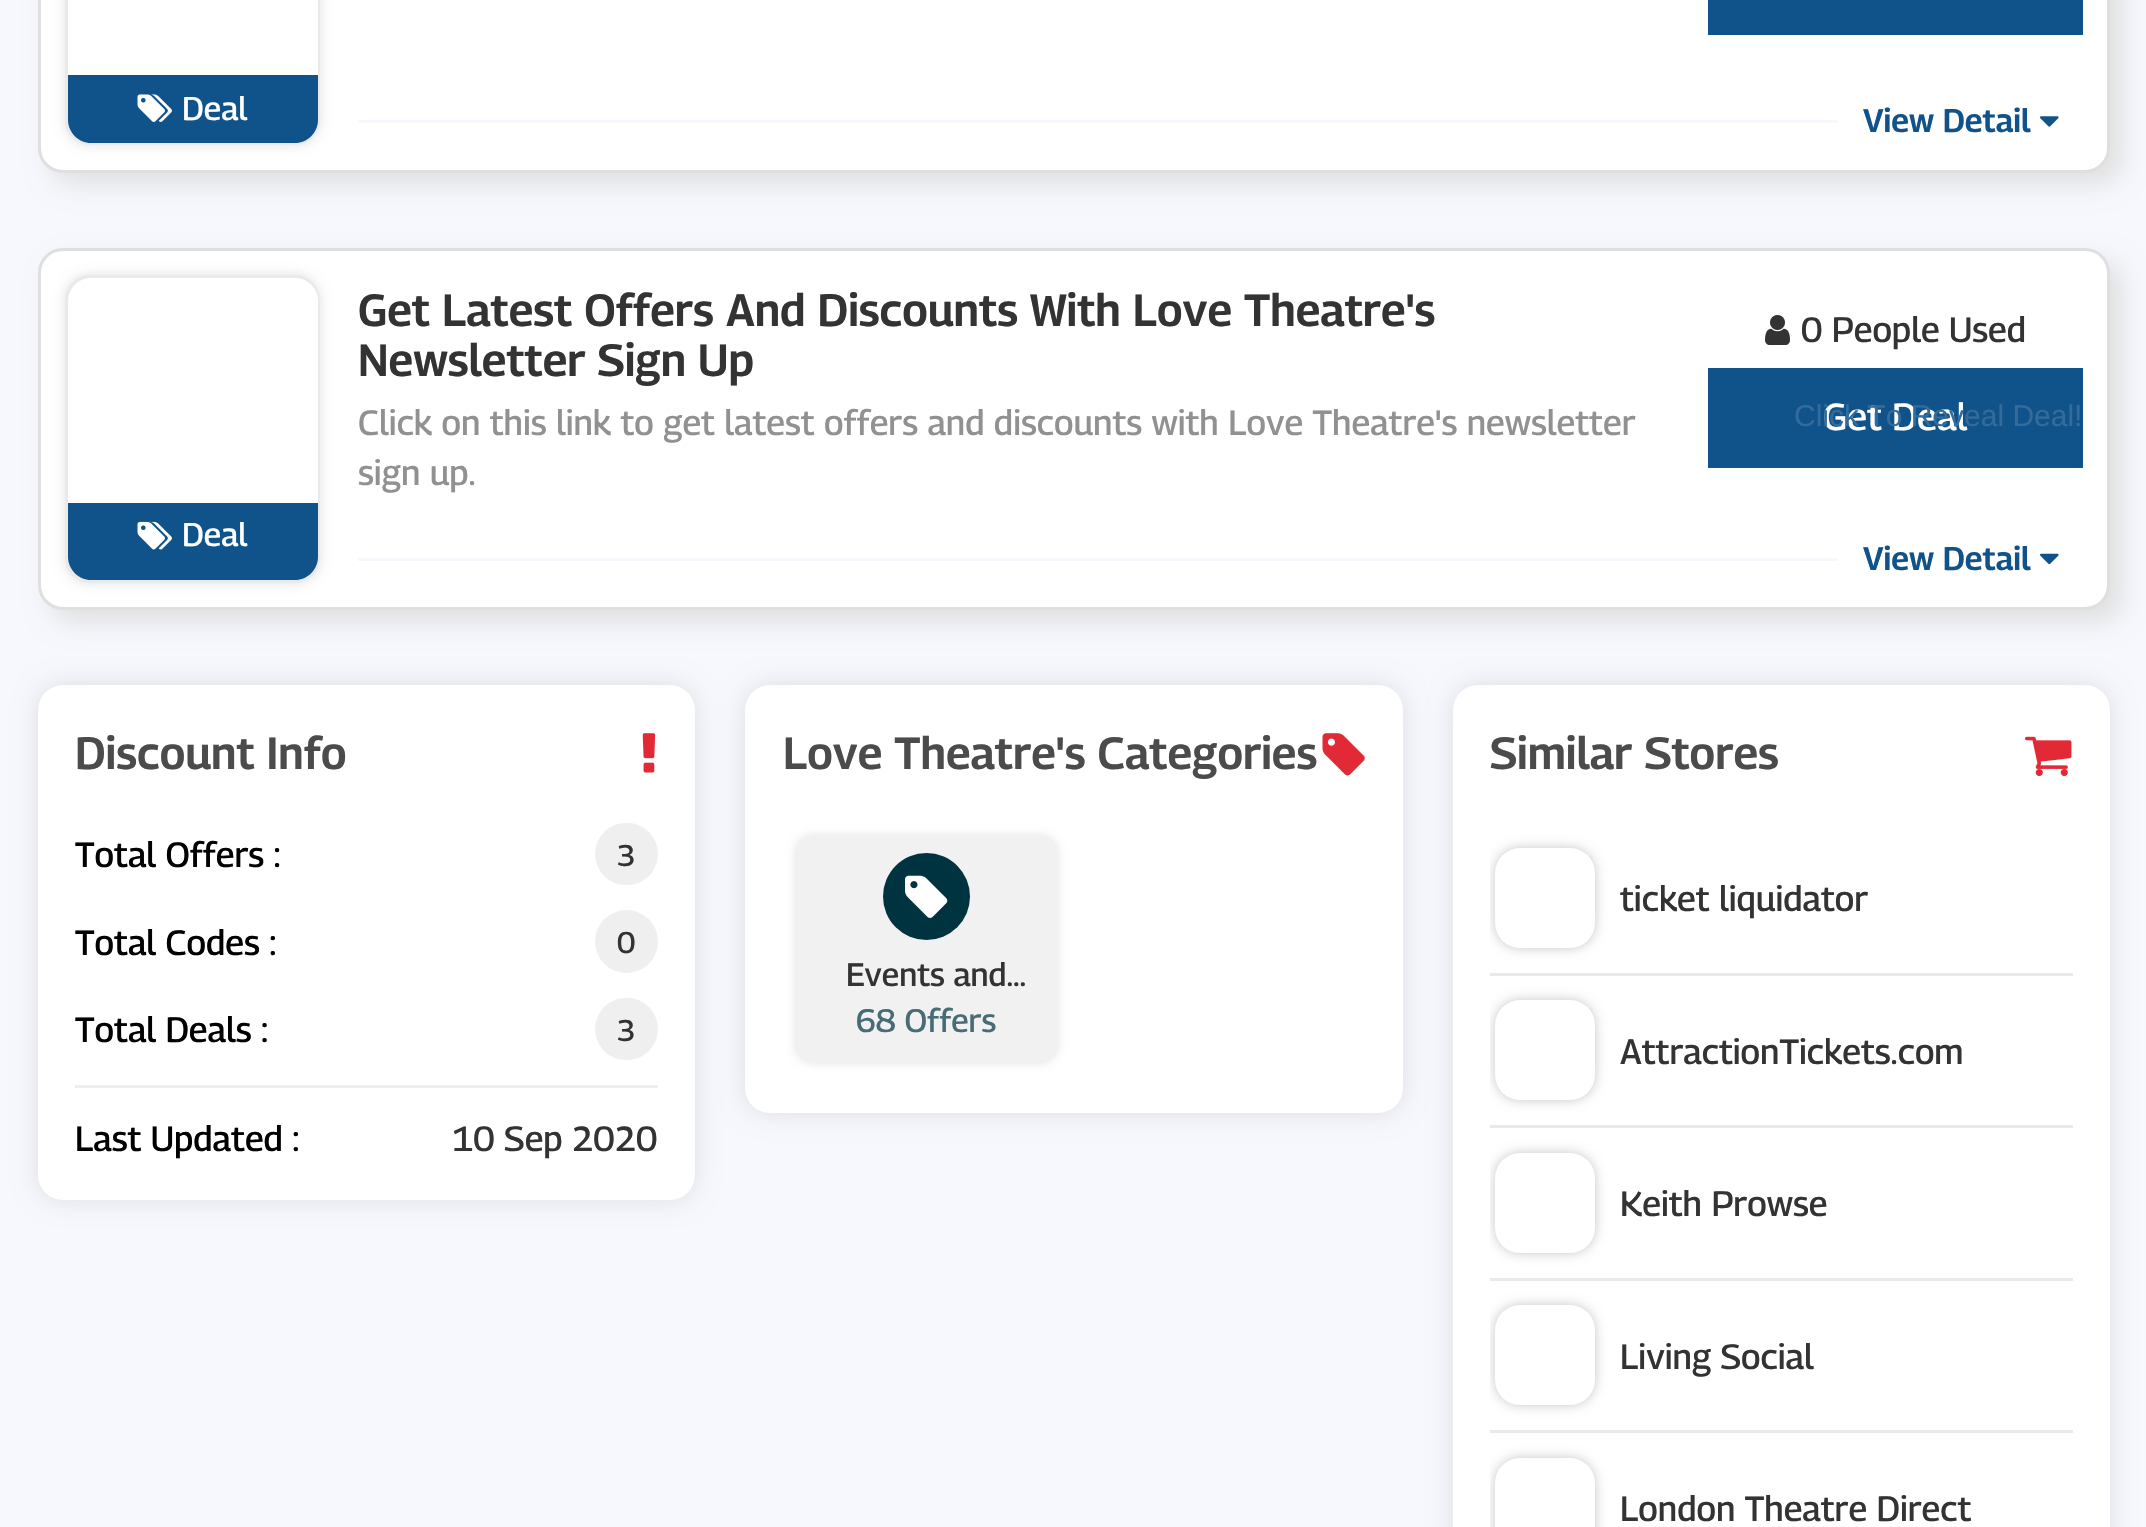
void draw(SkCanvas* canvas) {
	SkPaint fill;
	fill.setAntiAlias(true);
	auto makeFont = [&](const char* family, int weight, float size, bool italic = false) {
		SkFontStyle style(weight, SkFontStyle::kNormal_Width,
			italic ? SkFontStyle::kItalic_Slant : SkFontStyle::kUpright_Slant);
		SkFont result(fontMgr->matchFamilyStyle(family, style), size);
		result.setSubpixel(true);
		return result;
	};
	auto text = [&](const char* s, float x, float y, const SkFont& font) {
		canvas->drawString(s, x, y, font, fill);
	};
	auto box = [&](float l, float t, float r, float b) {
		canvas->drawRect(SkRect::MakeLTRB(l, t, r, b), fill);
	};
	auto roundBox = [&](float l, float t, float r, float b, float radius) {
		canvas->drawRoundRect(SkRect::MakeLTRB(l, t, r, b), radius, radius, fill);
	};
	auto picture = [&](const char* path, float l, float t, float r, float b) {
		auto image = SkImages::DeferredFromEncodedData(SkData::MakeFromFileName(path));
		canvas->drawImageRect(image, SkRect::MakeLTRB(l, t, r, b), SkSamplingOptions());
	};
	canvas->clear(0xFFF6F8FE);
	fill.setColor(0xFFE1E1E1);
	fill.setMaskFilter(SkMaskFilter::MakeBlur(kNormal_SkBlurStyle, 12.5f));
	canvas->drawRoundRect(SkRect::MakeLTRB(50, -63, 2123, 185), 25, 25, fill);
	fill.setMaskFilter(nullptr);
	fill.setColor(0xFFFFFFFF);
	canvas->drawRoundRect(SkRect::MakeLTRB(39.5f, -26.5f, 2108.5f, 171.5f), 23.5f, 23.5f, fill);
	fill.setStyle(SkPaint::kStroke_Style);
	fill.setStrokeWidth(3);
	fill.setColor(0xFFDFDFDF);
	canvas->drawRoundRect(SkRect::MakeLTRB(39.5f, -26.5f, 2108.5f, 171.5f), 23.5f, 23.5f, fill);
	fill.setStyle(SkPaint::kFill_Style);
	fill.setColor(0xFFE1E1E1);
	fill.setMaskFilter(SkMaskFilter::MakeBlur(kNormal_SkBlurStyle, 6));
	canvas->drawRoundRect(SkRect::MakeLTRB(65, -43, 320, 145), 25, 25, fill);
	fill.setMaskFilter(nullptr);
	fill.setStyle(SkPaint::kStroke_Style);
	fill.setColor(0xFFEAEAEA);
	canvas->drawRoundRect(SkRect::MakeLTRB(66.5f, -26.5f, 318.5f, 143.5f), 23.5f, 23.5f, fill);
	fill.setStyle(SkPaint::kFill_Style);
	fill.setColor(0xFFFFFFFF);
	box(68, 0, 318, 75);
	fill.setColor(0xFF10528A);
	canvas->drawPath(SkPathBuilder().moveTo(68, 75).lineTo(318, 75).lineTo(318, 120).cubicTo(318, 132.5f, 307.5f, 143, 295, 143).lineTo(91, 143).cubicTo(78.5f, 143, 68, 132.5f, 68, 120).close().detach(), fill);
	picture("image0.png", 137, 94, 172, 122);
	box(1708, 0, 2083, 35);
	fill.setColor(0xFFF6F8FE);
	box(358, 120, 1838, 123);
	picture("image1.png", 2040, 116, 2059, 127);
	fill.setColor(0xFFE1E1E1);
	fill.setMaskFilter(SkMaskFilter::MakeBlur(kNormal_SkBlurStyle, 12.5f));
	canvas->drawRoundRect(SkRect::MakeLTRB(50, 260, 2123, 623), 25, 25, fill);
	fill.setMaskFilter(nullptr);
	fill.setColor(0xFFFFFFFF);
	canvas->drawRoundRect(SkRect::MakeLTRB(39.5f, 249.5f, 2108.5f, 608.5f), 23.5f, 23.5f, fill);
	fill.setStyle(SkPaint::kStroke_Style);
	fill.setColor(0xFFDFDFDF);
	canvas->drawRoundRect(SkRect::MakeLTRB(39.5f, 249.5f, 2108.5f, 608.5f), 23.5f, 23.5f, fill);
	fill.setStyle(SkPaint::kFill_Style);
	fill.setColor(0xFFE1E1E1);
	fill.setMaskFilter(SkMaskFilter::MakeBlur(kNormal_SkBlurStyle, 6));
	canvas->drawRoundRect(SkRect::MakeLTRB(65, 275, 320, 583), 25, 25, fill);
	fill.setMaskFilter(nullptr);
	fill.setStyle(SkPaint::kStroke_Style);
	fill.setColor(0xFFEAEAEA);
	canvas->drawRoundRect(SkRect::MakeLTRB(66.5f, 276.5f, 318.5f, 581.5f), 23.5f, 23.5f, fill);
	fill.setStyle(SkPaint::kFill_Style);
	fill.setColor(0xFFFFFFFF);
	canvas->drawPath(SkPathBuilder().moveTo(91, 278).lineTo(295, 278).cubicTo(307.5f, 278, 318, 288.5f, 318, 301).lineTo(318, 503).lineTo(68, 503).lineTo(68, 301).cubicTo(68, 288.5f, 78.5f, 278, 91, 278).close().detach(), fill);
	fill.setColor(0xFF10528A);
	canvas->drawPath(SkPathBuilder().moveTo(68, 503).lineTo(318, 503).lineTo(318, 557).cubicTo(318, 569.5f, 307.5f, 580, 295, 580).lineTo(91, 580).cubicTo(78.5f, 580, 68, 569.5f, 68, 557).close().detach(), fill);
	picture("image2.png", 137, 521, 172, 550);
	picture("image3.png", 1765, 315, 1790, 345);
	box(1708, 368, 2083, 468);
	fill.setColor(0xFFF6F8FE);
	box(358, 558, 1838, 561);
	picture("image4.png", 2040, 553, 2059, 565);
	fill.setColor(0x1A000000);
	fill.setMaskFilter(SkMaskFilter::MakeBlur(kNormal_SkBlurStyle, 12.5f));
	canvas->drawRoundRect(SkRect::MakeLTRB(38, 685, 695, 1200), 25, 25, fill);
	fill.setMaskFilter(nullptr);
	fill.setColor(0xFFFFFFFF);
	roundBox(38, 685, 695, 1200, 25);
	picture("image5.png", 642, 733, 656, 773);
	fill.setColor(0xFFEFEFEF);
	roundBox(595, 823, 658, 885, 31);
	canvas->drawCircle(626.5f, 941.5f, 31.5f, fill);
	roundBox(595, 998, 658, 1060, 31);
	fill.setColor(0xFFEEEEEE);
	box(75, 1085, 658, 1088);
	fill.setColor(0x1A000000);
	fill.setMaskFilter(SkMaskFilter::MakeBlur(kNormal_SkBlurStyle, 12.5f));
	canvas->drawRoundRect(SkRect::MakeLTRB(745, 685, 1403, 1113), 25, 25, fill);
	fill.setMaskFilter(nullptr);
	fill.setColor(0xFFFFFFFF);
	roundBox(745, 685, 1403, 1113, 25);
	picture("image6.png", 1322, 733, 1365, 776);
	canvas->save();
	canvas->clipPath(SkPathBuilder(SkPathFillType::kEvenOdd).moveTo(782, 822).lineTo(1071, 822).lineTo(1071, 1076).lineTo(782, 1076).close().moveTo(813, 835).lineTo(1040, 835).cubicTo(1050, 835, 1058, 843, 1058, 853).lineTo(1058, 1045).cubicTo(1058, 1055, 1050, 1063, 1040, 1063).lineTo(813, 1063).cubicTo(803, 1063, 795, 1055, 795, 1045).lineTo(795, 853).cubicTo(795, 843, 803, 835, 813, 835).close().detach(), true);
	fill.setColor(0x1A000000);
	fill.setMaskFilter(SkMaskFilter::MakeBlur(kNormal_SkBlurStyle, 4));
	canvas->drawRoundRect(SkRect::MakeLTRB(795, 835, 1058, 1063), 18, 18, fill);
	fill.setMaskFilter(nullptr);
	canvas->restore();
	fill.setColor(0xBFECECEC);
	roundBox(795, 835, 1058, 1063, 18);
	fill.setColor(0xFF003340);
	canvas->drawCircle(926.5f, 896.5f, 43.5f, fill);
	picture("image7.png", 905, 875, 948, 918);
	fill.setColor(0x1A000000);
	fill.setMaskFilter(SkMaskFilter::MakeBlur(kNormal_SkBlurStyle, 12.5f));
	canvas->drawRoundRect(SkRect::MakeLTRB(1453, 685, 2110, 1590), 25, 25, fill);
	fill.setMaskFilter(nullptr);
	fill.setColor(0xFFFFFFFF);
	roundBox(1453, 685, 2110, 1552, 25);
	picture("image8.png", 2025, 736, 2072, 777);
	fill.setColor(0xFFEAEAEA);
	box(1490, 973, 2073, 976);
	canvas->save();
	canvas->clipRect(SkRect::MakeLTRB(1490, 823, 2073, 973));
	fill.setColor(0xFFC7C7C7);
	fill.setMaskFilter(SkMaskFilter::MakeBlur(kNormal_SkBlurStyle, 6));
	canvas->drawRoundRect(SkRect::MakeLTRB(1495, 848, 1595, 948), 25, 25, fill);
	fill.setMaskFilter(nullptr);
	canvas->restore();
	fill.setColor(0xFFFFFFFF);
	roundBox(1495, 848, 1595, 948, 25);
	fill.setColor(0xFFEAEAEA);
	box(1490, 1125, 2073, 1128);
	canvas->save();
	canvas->clipRect(SkRect::MakeLTRB(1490, 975, 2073, 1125));
	fill.setColor(0xFFC7C7C7);
	fill.setMaskFilter(SkMaskFilter::MakeBlur(kNormal_SkBlurStyle, 6));
	canvas->drawRoundRect(SkRect::MakeLTRB(1495, 1000, 1595, 1100), 25, 25, fill);
	fill.setMaskFilter(nullptr);
	canvas->restore();
	fill.setColor(0xFFFFFFFF);
	roundBox(1495, 1000, 1595, 1100, 25);
	fill.setColor(0xFFEAEAEA);
	box(1490, 1278, 2073, 1281);
	canvas->save();
	canvas->clipRect(SkRect::MakeLTRB(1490, 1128, 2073, 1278));
	fill.setColor(0xFFC7C7C7);
	fill.setMaskFilter(SkMaskFilter::MakeBlur(kNormal_SkBlurStyle, 6));
	canvas->drawRoundRect(SkRect::MakeLTRB(1495, 1153, 1595, 1253), 25, 25, fill);
	fill.setMaskFilter(nullptr);
	canvas->restore();
	fill.setColor(0xFFFFFFFF);
	roundBox(1495, 1153, 1595, 1253, 25);
	fill.setColor(0xFFEAEAEA);
	box(1490, 1430, 2073, 1433);
	canvas->save();
	canvas->clipRect(SkRect::MakeLTRB(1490, 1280, 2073, 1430));
	fill.setColor(0xFFC7C7C7);
	fill.setMaskFilter(SkMaskFilter::MakeBlur(kNormal_SkBlurStyle, 6));
	canvas->drawRoundRect(SkRect::MakeLTRB(1495, 1305, 1595, 1405), 25, 25, fill);
	fill.setMaskFilter(nullptr);
	canvas->restore();
	fill.setColor(0xFFFFFFFF);
	roundBox(1495, 1305, 1595, 1405, 25);
	canvas->save();
	canvas->clipRect(SkRect::MakeLTRB(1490, 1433, 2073, 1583));
	fill.setColor(0xFFC7C7C7);
	fill.setMaskFilter(SkMaskFilter::MakeBlur(kNormal_SkBlurStyle, 6));
	canvas->drawRoundRect(SkRect::MakeLTRB(1495, 1458, 1595, 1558), 25, 25, fill);
	fill.setMaskFilter(nullptr);
	canvas->restore();
	fill.setColor(0xFFFFFFFF);
	roundBox(1495, 1458, 1595, 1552, 25);
	auto font1 = makeFont("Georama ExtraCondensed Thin", 500, 32.5f);
	text("Deal", 182, 120, font1);
	auto font2 = makeFont("Georama ExtraCondensed Thin", 600, 32.5f);
	fill.setColor(0xFF10528A);
	text("View Detail", 1863, 132, font2);
	fill.setColor(0xFFFFFFFF);
	text("Deal", 182, 546, font1);
	auto font3 = makeFont("Georama ExtraCondensed Thin", 600, 45);
	fill.setColor(0xFF333333);
	text("Get Latest Offers And Discounts With Love Theatre's", 358, 326, font3);
	text("Newsletter Sign Up", 358, 376, font3);
	auto font4 = makeFont("Georama ExtraCondensed Thin", 500, 35);
	fill.setColor(0xFF919191);
	text("Click on this link to get latest offers and discounts with Love Theatre's newsletter", 358, 435, font4);
	text("sign up.", 358, 485, font4);
	fill.setColor(0xFF333333);
	text("0 People Used", 1801, 342, font4);
	auto font5 = makeFont("Georama ExtraCondensed Thin", 500, 37.5f);
	fill.setColor(0xFFFFFFFF);
	text("Get Deal", 1823, 430, font5);
	auto font6 = makeFont("Liberation Sans", 400, 30);
	fill.setColor(0xFF336B9B);
	text("Click To Reveal Deal!", 1794, 426, font6);
	fill.setColor(0xFF10528A);
	text("View Detail", 1863, 570, font2);
	fill.setColor(0xFF4B4B4B);
	text("Discount Info", 75, 769, font3);
	fill.setColor(0xFF000000);
	text("Total Offers :", 75, 867, font4);
	auto font7 = makeFont("Georama ExtraCondensed Thin", 500, 30);
	fill.setColor(0xFF333333);
	text("3", 617, 866, font7);
	fill.setColor(0xFF000000);
	text("Total Codes :", 75, 955, font4);
	fill.setColor(0xFF333333);
	text("0", 617, 953, font7);
	fill.setColor(0xFF000000);
	text("Total Deals :", 75, 1042, font4);
	fill.setColor(0xFF333333);
	text("3", 617, 1041, font7);
	fill.setColor(0xFF000000);
	text("Last Updated :", 75, 1151, font4);
	fill.setColor(0xFF333333);
	text("10 Sep 2020", 452, 1151, font4);
	fill.setColor(0xFF4B4B4B);
	text("Love Theatre's Categories", 783, 769, font3);
	fill.setColor(0xFF333333);
	text("Events and…", 846, 986, font1);
	fill.setColor(0xFF486C75);
	text("68 Offers", 856, 1032, font1);
	fill.setColor(0xFF4B4B4B);
	text("Similar Stores", 1490, 769, font3);
	fill.setColor(0xFF333333);
	text("ticket liquidator", 1620, 911, font4);
	text("AttractionTickets.com", 1620, 1064, font4);
	text("Keith Prowse", 1620, 1216, font4);
	text("Living Social", 1620, 1369, font4);
	text("London Theatre Direct", 1620, 1521, font4);
}
